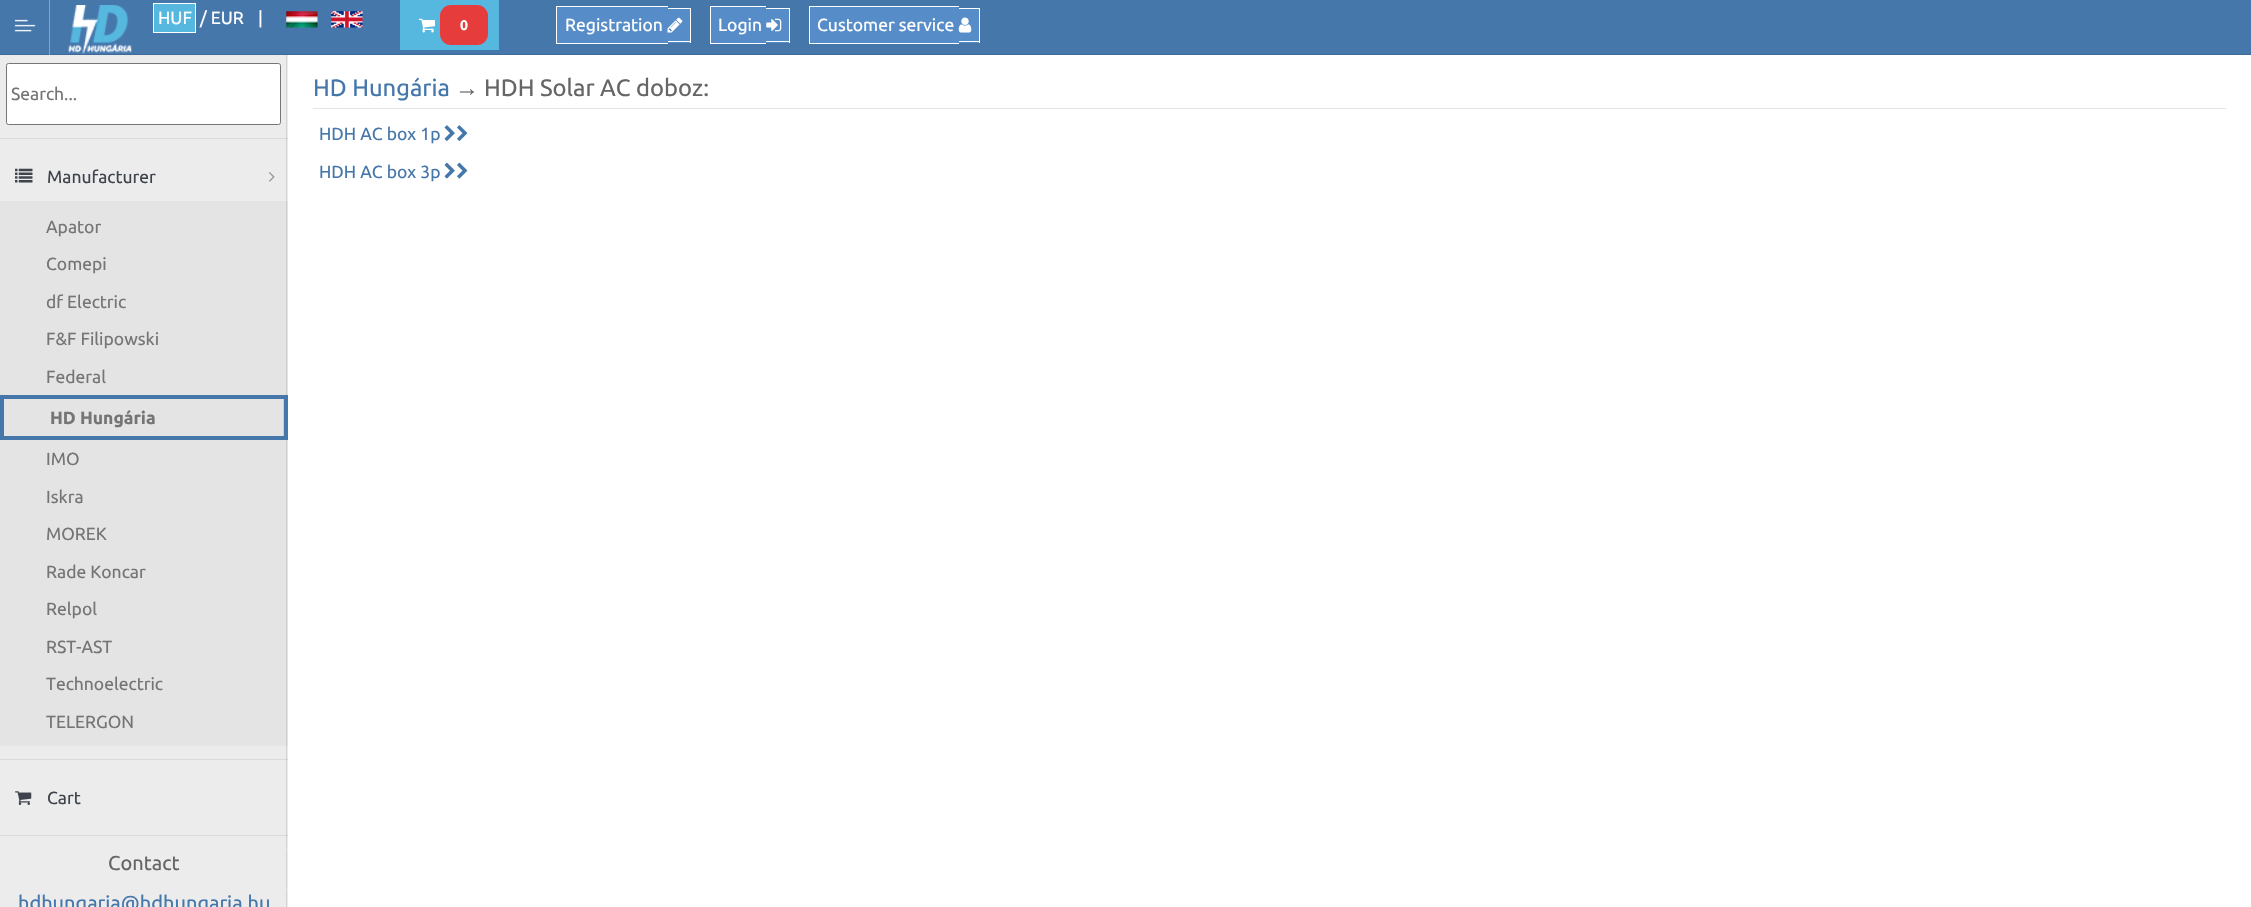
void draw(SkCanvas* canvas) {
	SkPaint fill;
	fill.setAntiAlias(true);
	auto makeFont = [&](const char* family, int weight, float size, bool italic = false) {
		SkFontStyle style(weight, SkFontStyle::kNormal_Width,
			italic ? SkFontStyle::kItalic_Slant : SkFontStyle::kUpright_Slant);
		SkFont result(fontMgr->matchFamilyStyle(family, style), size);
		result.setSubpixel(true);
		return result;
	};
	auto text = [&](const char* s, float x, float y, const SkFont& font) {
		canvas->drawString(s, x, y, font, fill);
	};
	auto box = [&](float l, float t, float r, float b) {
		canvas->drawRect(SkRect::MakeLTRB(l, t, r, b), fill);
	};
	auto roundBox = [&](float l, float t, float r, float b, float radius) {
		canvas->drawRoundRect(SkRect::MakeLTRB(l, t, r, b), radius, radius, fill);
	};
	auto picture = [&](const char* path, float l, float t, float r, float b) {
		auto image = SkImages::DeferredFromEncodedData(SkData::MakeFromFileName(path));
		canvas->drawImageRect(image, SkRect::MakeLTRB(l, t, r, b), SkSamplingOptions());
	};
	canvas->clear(0xFFFFFFFF);
	fill.setColor(0xFFECECEC);
	box(0, 55, 288, 907);
	fill.setColor(0xFFD4D4D4);
	box(286, 50, 287, 907);
	fill.setColor(0xFF4677AB);
	box(0, 0, 2251, 54);
	fill.setColor(0xFF3F6B9A);
	box(0, 54, 2251, 55);
	picture("image0.png", 14, 19, 36, 32);
	fill.setColor(0xFF56B7DF);
	box(49, 0, 50, 55);
	picture("image1.png", 68, 5, 132, 54);
	canvas->drawRect(SkRect::MakeLTRB(153.5f, 3.5f, 195.5f, 32.5f), fill);
	fill.setStyle(SkPaint::kStroke_Style);
	fill.setStrokeWidth(1);
	fill.setColor(0xFFFFFFFF);
	canvas->drawRect(SkRect::MakeLTRB(153.5f, 3.5f, 195.5f, 32.5f), fill);
	picture("image2.png", 286, 11, 318, 28);
	picture("image3.png", 331, 11, 363, 28);
	fill.setStyle(SkPaint::kFill_Style);
	fill.setColor(0xFF56B7DF);
	box(400, 0, 499, 50);
	picture("image4.png", 418, 18, 435, 33);
	fill.setColor(0xFFE73C3C);
	roundBox(440, 5, 488, 45, 11);
	fill.setColor(0xFF568DC8);
	box(557, 7, 668, 43);
	fill.setColor(0xFFFFFFFF);
	box(556, 6, 668, 7);
	box(556, 43, 668, 44);
	box(556, 6, 557, 44);
	fill.setColor(0xFF568DC8);
	box(668, 9, 690, 43);
	fill.setColor(0xFFFFFFFF);
	box(668, 8, 691, 9);
	box(690, 8, 691, 43);
	box(668, 41, 691, 42);
	picture("image5.png", 667, 17, 683, 33);
	fill.setColor(0xFF568DC8);
	box(711, 7, 766, 43);
	fill.setColor(0xFFFFFFFF);
	box(710, 6, 766, 7);
	box(710, 43, 766, 44);
	box(710, 6, 711, 44);
	fill.setColor(0xFF568DC8);
	box(766, 9, 789, 43);
	fill.setColor(0xFFFFFFFF);
	box(766, 8, 790, 9);
	box(789, 8, 790, 43);
	box(766, 41, 790, 42);
	picture("image6.png", 766, 18, 782, 32);
	fill.setColor(0xFF568DC8);
	box(810, 7, 959, 43);
	fill.setColor(0xFFFFFFFF);
	box(809, 6, 959, 7);
	box(809, 43, 959, 44);
	box(809, 6, 810, 44);
	fill.setColor(0xFF568DC8);
	box(959, 9, 979, 43);
	fill.setColor(0xFFFFFFFF);
	box(959, 8, 980, 9);
	box(979, 8, 980, 43);
	box(959, 41, 980, 42);
	picture("image7.png", 958, 17, 972, 33);
	canvas->drawRoundRect(SkRect::MakeLTRB(6.5f, 63.5f, 280.5f, 124.5f), 2, 2, fill);
	fill.setStyle(SkPaint::kStroke_Style);
	fill.setColor(0xFF767676);
	canvas->drawRoundRect(SkRect::MakeLTRB(6.5f, 63.5f, 280.5f, 124.5f), 2, 2, fill);
	fill.setStyle(SkPaint::kFill_Style);
	fill.setColor(0xFFDADADA);
	box(0, 138, 288, 139);
	fill.setColor(0xFFC4C4C4);
	box(286, 138, 287, 139);
	picture("image8.png", 15, 168, 33, 183);
	picture("image9.png", 269, 172, 275, 182);
	fill.setColor(0xFFE4E4E4);
	box(0, 201, 288, 746);
	fill.setColor(0xFFCDCDCD);
	box(286, 201, 287, 746);
	fill.setColor(0xFFE4E4E4);
	box(286, 208, 287, 395);
	fill.setColor(0xFFCDCDCD);
	box(286, 208, 287, 395);
	fill.setColor(0xFF4677AB);
	box(0, 395, 288, 440);
	fill.setColor(0xFFE4E4E4);
	box(4, 399, 283, 436);
	fill.setColor(0xFFCDCDCD);
	box(283, 399, 284, 436);
	fill.setColor(0xFFE4E4E4);
	box(286, 440, 287, 740);
	fill.setColor(0xFFCDCDCD);
	box(286, 440, 287, 740);
	fill.setColor(0xFFDADADA);
	box(0, 759, 288, 760);
	fill.setColor(0xFFC4C4C4);
	box(286, 759, 287, 760);
	picture("image10.png", 15, 791, 32, 805);
	fill.setColor(0xFFDADADA);
	box(0, 835, 288, 836);
	fill.setColor(0xFFC4C4C4);
	box(286, 835, 287, 836);
	fill.setColor(0xFFECECEC);
	box(286, 849, 288, 850);
	box(286, 889, 288, 890);
	fill.setColor(0xFFE5E5E5);
	box(313, 108, 2226, 109);
	picture("image11.png", 444, 125, 455, 141);
	picture("image12.png", 457, 125, 468, 141);
	picture("image13.png", 444, 162, 455, 179);
	picture("image14.png", 457, 162, 468, 179);
	auto font1 = makeFont("Ubuntu", 400, 17.5f);
	fill.setColor(0xFFFFFFFF);
	text("HUF", 158, 24, font1);
	text("/ EUR", 200, 24, font1);
	text("|", 258, 24, font1);
	auto font2 = makeFont("Ubuntu", 700, 14);
	text("0", 460, 30, font2);
	text("Registration", 565, 31, font1);
	text("Login", 718, 31, font1);
	text("Customer service", 817, 31, font1);
	fill.setColor(0xFF757575);
	text("Search...", 11, 100, font1);
	fill.setColor(0xFF3F444C);
	text("Manufacturer", 47, 183, font1);
	fill.setColor(0xFF757575);
	text("Apator", 46, 233, font1);
	text("Comepi", 46, 270, font1);
	text("df Electric", 46, 308, font1);
	text("F&F Filipowski", 46, 345, font1);
	text("Federal", 46, 383, font1);
	auto font3 = makeFont("Ubuntu", 700, 17.5f);
	text("HD Hungária", 50, 424, font3);
	text("IMO", 46, 465, font1);
	text("Iskra", 46, 503, font1);
	text("MOREK", 46, 540, font1);
	text("Rade Koncar", 46, 578, font1);
	text("Relpol", 46, 615, font1);
	text("RST-AST", 46, 653, font1);
	text("Technoelectric", 46, 690, font1);
	text("TELERGON", 46, 728, font1);
	fill.setColor(0xFF3F444C);
	text("Cart", 47, 804, font1);
	auto font4 = makeFont("Ubuntu", 400, 20);
	fill.setColor(0xFF666666);
	text("Contact", 108, 870, font4);
	fill.setColor(0xFF4677AB);
	text("hdhungaria@hdhungaria.hu", 18, 910, font4);
	auto font5 = makeFont("Ubuntu", 400, 23.75f);
	text("HD Hungária", 313, 96, font5);
	auto font6 = makeFont("Liberation Sans", 400, 23.75f);
	fill.setColor(0xFF666666);
	text("→", 455, 96, font6);
	text("HDH Solar AC doboz:", 484, 96, font5);
	fill.setColor(0xFF4677AB);
	text("HDH AC box 1p", 319, 140, font1);
	text("HDH AC box 3p", 319, 178, font1);
}
